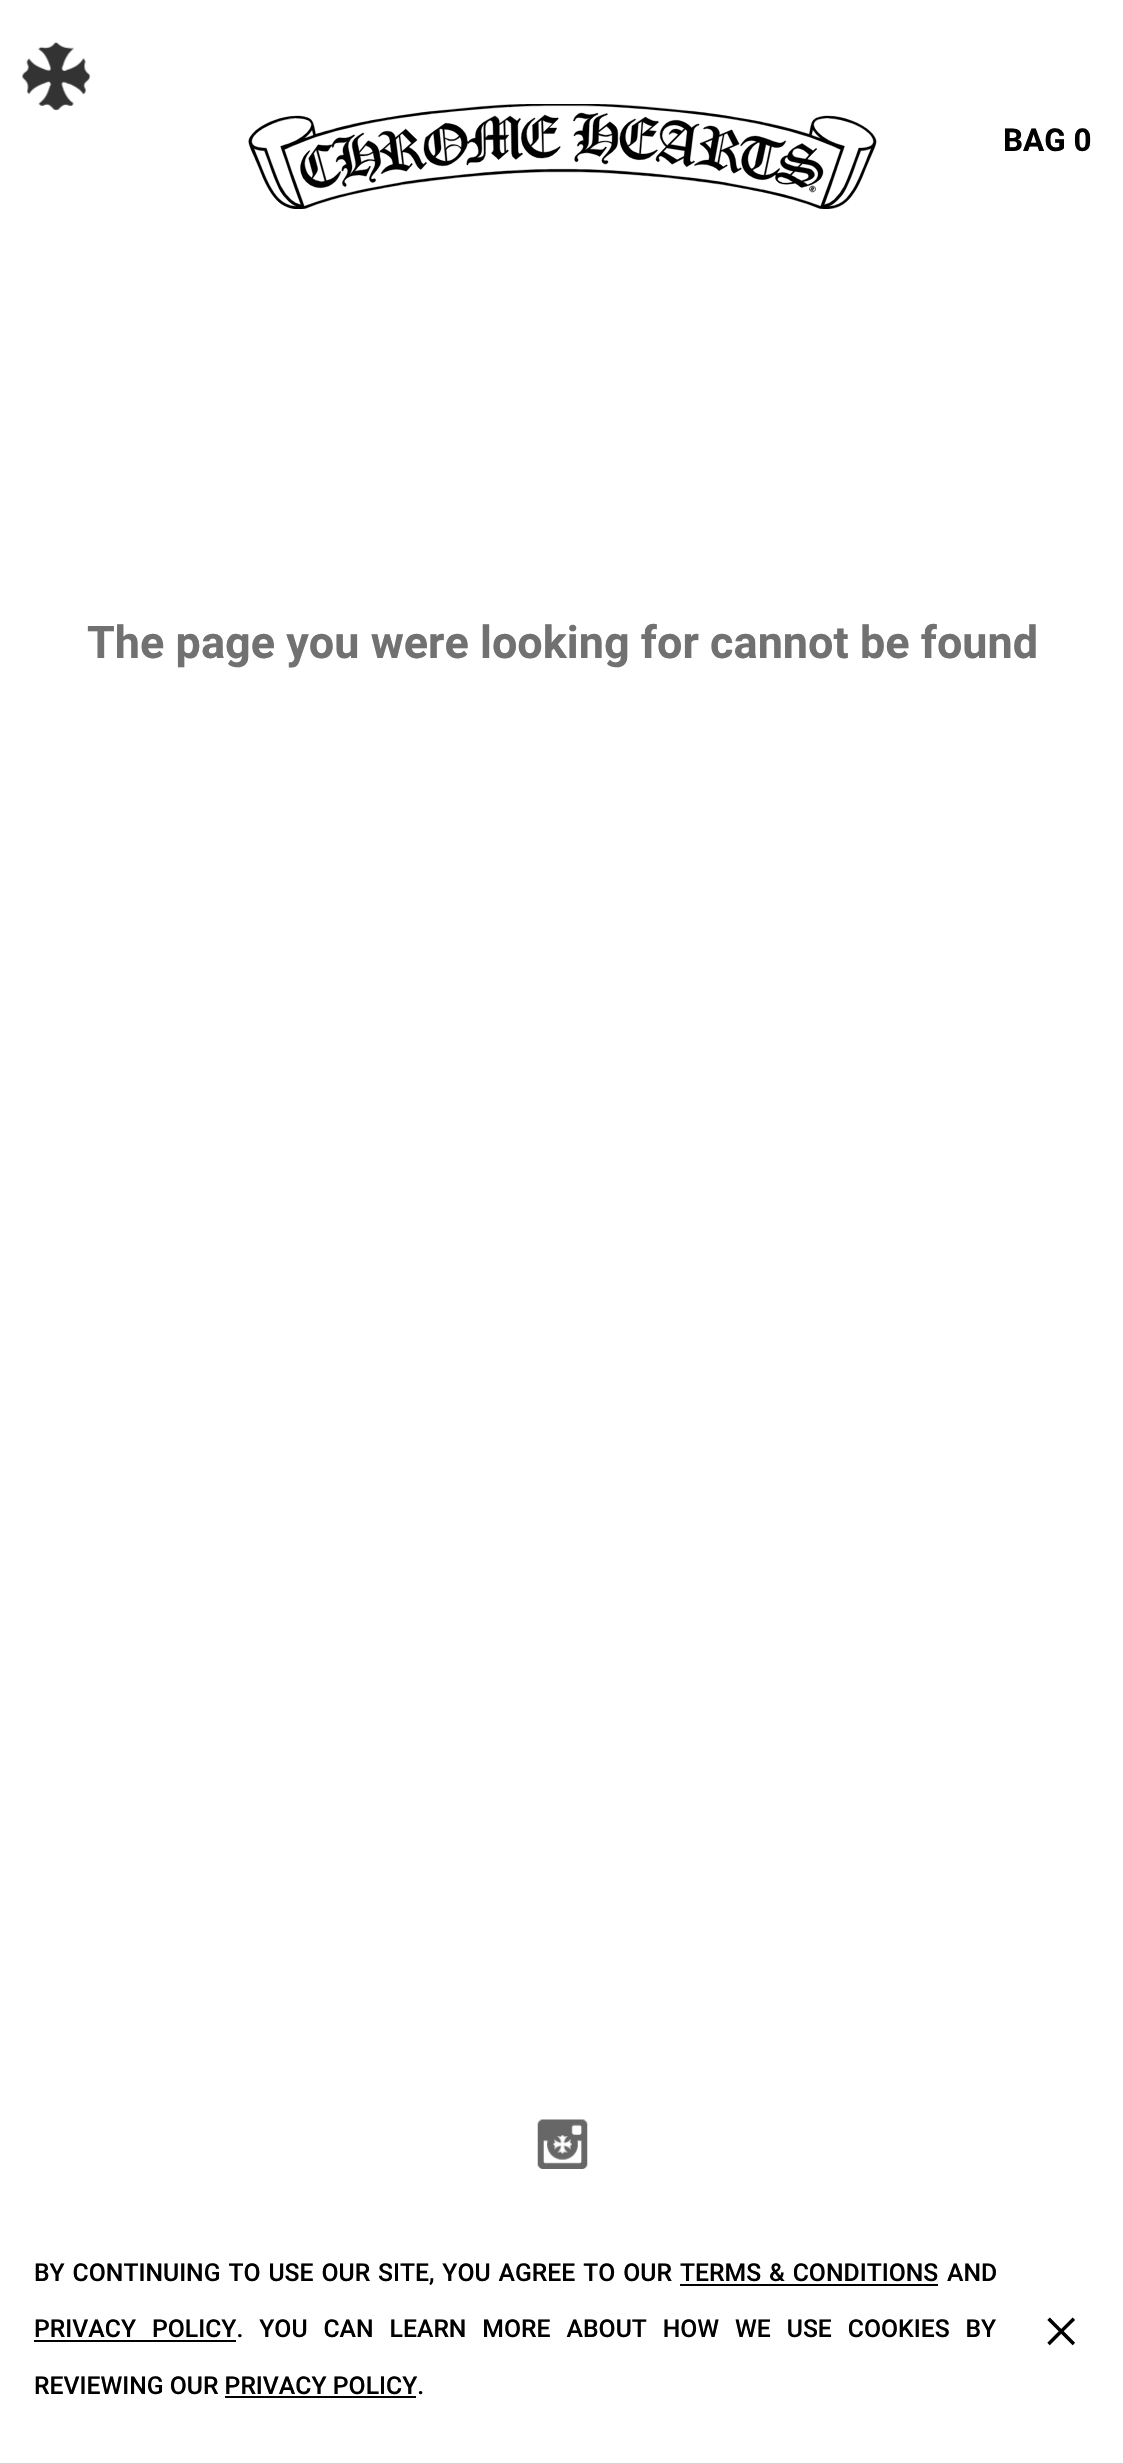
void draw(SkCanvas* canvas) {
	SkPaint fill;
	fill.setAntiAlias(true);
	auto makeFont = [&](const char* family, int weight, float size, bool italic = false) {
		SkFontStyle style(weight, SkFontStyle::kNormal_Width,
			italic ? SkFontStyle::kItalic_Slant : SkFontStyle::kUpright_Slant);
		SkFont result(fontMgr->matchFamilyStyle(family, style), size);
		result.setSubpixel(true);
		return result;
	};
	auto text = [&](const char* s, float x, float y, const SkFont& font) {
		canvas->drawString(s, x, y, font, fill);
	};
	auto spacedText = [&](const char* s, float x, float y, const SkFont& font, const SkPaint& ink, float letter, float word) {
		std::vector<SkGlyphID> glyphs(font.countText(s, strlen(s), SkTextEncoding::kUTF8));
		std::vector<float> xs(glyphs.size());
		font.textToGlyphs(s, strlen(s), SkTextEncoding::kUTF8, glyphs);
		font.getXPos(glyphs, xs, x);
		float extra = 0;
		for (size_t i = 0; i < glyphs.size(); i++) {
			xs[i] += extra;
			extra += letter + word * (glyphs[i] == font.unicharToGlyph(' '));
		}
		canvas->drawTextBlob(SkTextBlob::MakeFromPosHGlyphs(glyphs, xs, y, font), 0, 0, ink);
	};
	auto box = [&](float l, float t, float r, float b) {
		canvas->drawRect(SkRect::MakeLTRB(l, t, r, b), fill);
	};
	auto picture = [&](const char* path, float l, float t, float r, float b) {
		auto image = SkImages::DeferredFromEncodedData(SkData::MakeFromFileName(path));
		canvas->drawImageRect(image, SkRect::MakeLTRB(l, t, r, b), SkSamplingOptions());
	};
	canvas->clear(0xFFFFFFFF);
	picture("image0.png", 22, 42, 91, 111);
	picture("image1.png", 248, 104, 877, 209);
	picture("image2.png", 537, 2119, 588, 2169);
	fill.setColor(0xFF000000);
	box(680, 2284, 938, 2286);
	box(34, 2340, 236, 2342);
	box(225, 2396, 416, 2398);
	auto font1 = makeFont("Roboto", 700, 31.5f);
	text("BAG 0", 1003, 151, font1);
	auto font2 = makeFont("Roboto", 700, 45);
	fill.setColor(0xFF717171);
	text("The page you were looking for cannot be found", 87, 658, font2);
	auto font3 = makeFont("Roboto", 500, 24.75f);
	fill.setColor(0xFF000000);
	spacedText("BY CONTINUING TO USE OUR SITE, YOU AGREE TO OUR", 34, 2281, font3, fill, 0, 1.75f);
	spacedText("TERMS & CONDITIONS", 680, 2281, font3, fill, 0, 1.75f);
	text("AND", 947, 2281, font3);
	spacedText("PRIVACY POLICY. YOU CAN LEARN MORE ABOUT HOW WE USE COOKIES BY", 34, 2337, font3, fill, 0, 9.75f);
	text("REVIEWING OUR PRIVACY POLICY.", 34, 2394, font3);
	auto font4 = makeFont("Liberation Serif", 400, 68);
	text("×", 1042, 2354, font4);
}
